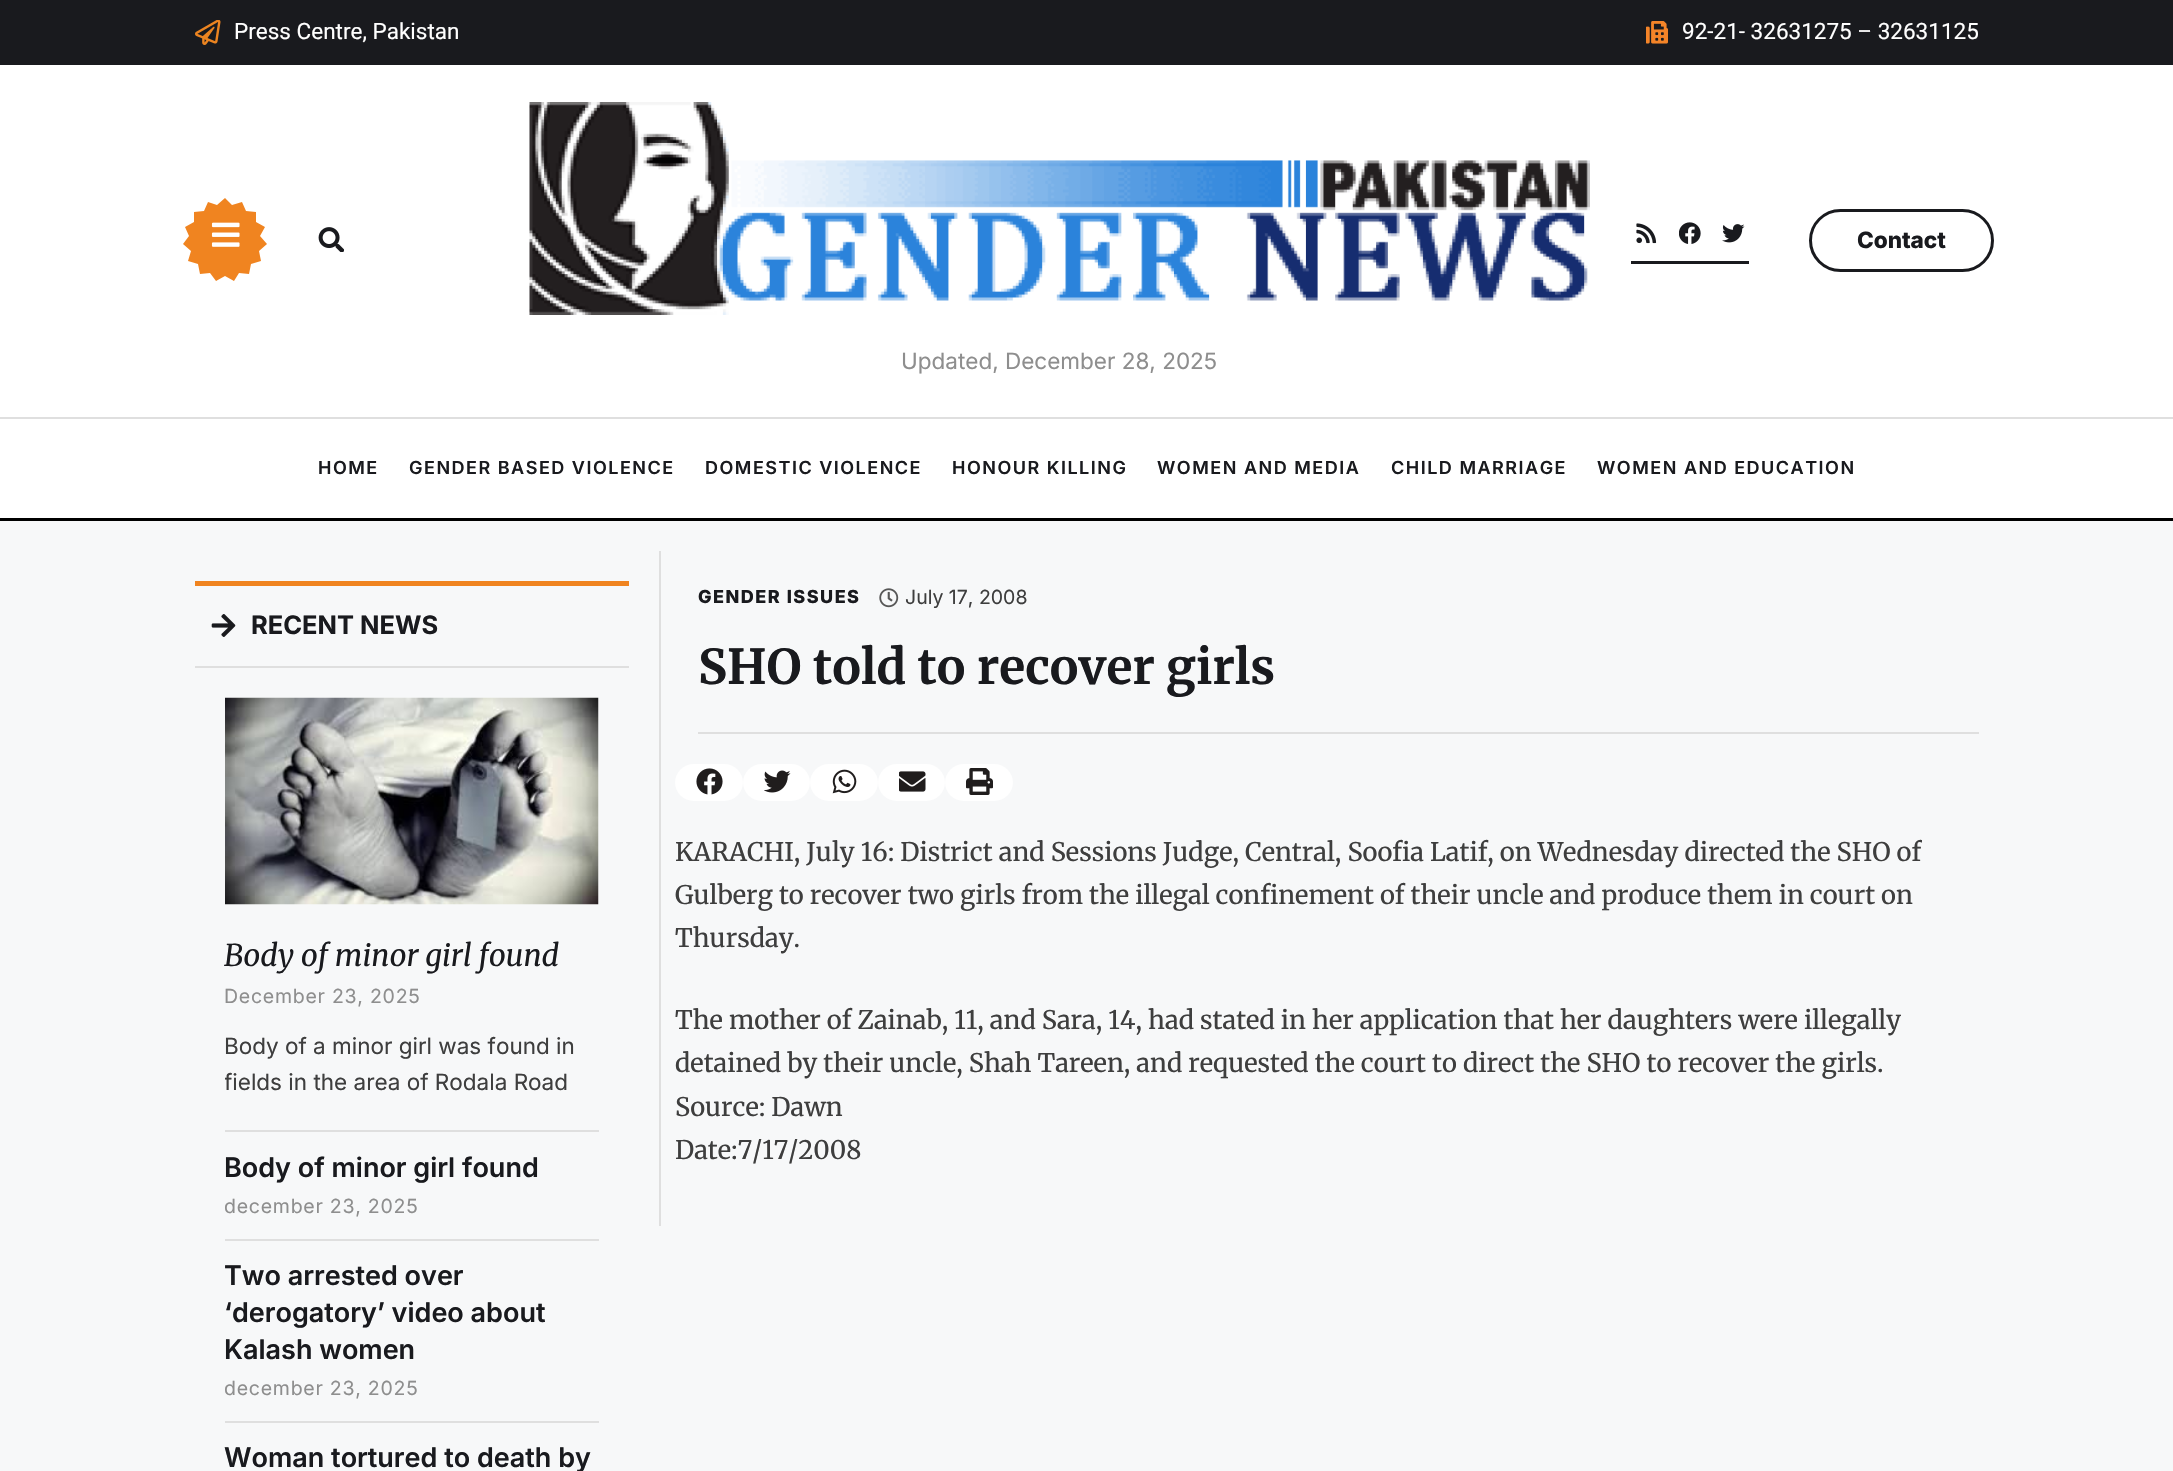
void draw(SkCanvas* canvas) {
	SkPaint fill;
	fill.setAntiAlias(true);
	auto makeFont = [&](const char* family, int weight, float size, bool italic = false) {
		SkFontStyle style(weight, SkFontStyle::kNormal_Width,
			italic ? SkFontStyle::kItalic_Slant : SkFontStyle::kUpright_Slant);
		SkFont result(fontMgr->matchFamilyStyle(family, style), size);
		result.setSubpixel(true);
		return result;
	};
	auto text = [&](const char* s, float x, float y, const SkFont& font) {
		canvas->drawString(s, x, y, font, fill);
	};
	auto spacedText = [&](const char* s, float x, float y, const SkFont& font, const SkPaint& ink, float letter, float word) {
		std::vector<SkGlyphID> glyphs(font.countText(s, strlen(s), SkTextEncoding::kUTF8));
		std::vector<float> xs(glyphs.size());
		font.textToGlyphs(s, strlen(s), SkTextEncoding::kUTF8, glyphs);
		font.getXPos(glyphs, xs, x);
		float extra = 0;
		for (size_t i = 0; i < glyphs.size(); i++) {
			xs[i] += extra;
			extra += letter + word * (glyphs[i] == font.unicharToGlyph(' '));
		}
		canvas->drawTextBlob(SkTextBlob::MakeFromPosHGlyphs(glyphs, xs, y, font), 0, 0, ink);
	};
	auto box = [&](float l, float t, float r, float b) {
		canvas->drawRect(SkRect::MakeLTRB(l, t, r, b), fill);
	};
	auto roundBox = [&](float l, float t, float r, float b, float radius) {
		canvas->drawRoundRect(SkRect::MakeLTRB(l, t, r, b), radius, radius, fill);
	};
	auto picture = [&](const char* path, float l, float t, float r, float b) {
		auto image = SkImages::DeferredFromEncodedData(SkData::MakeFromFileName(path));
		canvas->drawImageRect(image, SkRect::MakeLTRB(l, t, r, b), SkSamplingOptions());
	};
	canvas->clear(0xFFF7F8F9);
	fill.setColor(0xFF191A1E);
	box(0, 0, 2173, 65);
	picture("image0.png", 195, 20, 221, 45);
	picture("image1.png", 1646, 21, 1668, 44);
	fill.setColor(0xFFFFFFFF);
	box(0, 65, 2173, 417);
	fill.setColor(0xFFDFDFDF);
	box(0, 417, 2173, 419);
	fill.setColor(0xFFF08420);
	canvas->drawPath(SkPathBuilder().moveTo(225, 198).lineTo(232, 205).lineTo(242, 202).lineTo(246, 211).lineTo(256, 212).lineTo(256, 222).lineTo(265, 227).lineTo(260, 236).lineTo(267, 244).lineTo(259, 251).lineTo(261, 261).lineTo(251, 264).lineTo(249, 274).lineTo(239, 273).lineTo(234, 281).lineTo(225, 276).lineTo(216, 281).lineTo(210, 273).lineTo(200, 274).lineTo(198, 264).lineTo(188, 261).lineTo(191, 251).lineTo(183, 244).lineTo(189, 236).lineTo(185, 227).lineTo(194, 222).lineTo(194, 212).lineTo(204, 211).lineTo(208, 202).lineTo(217, 205).close().detach(), fill);
	picture("image2.png", 211, 222, 240, 247);
	picture("image3.png", 318, 227, 344, 252);
	fill.setColor(0xFF191A1E);
	box(1631, 261, 1749, 264);
	picture("image4.png", 1636, 223, 1657, 244);
	picture("image5.png", 1679, 222, 1701, 244);
	picture("image6.png", 1722, 224, 1745, 243);
	fill.setStyle(SkPaint::kStroke_Style);
	fill.setStrokeWidth(3);
	canvas->drawRoundRect(SkRect::MakeLTRB(1810.5f, 210.5f, 1992.5f, 270.5f), 30, 30, fill);
	picture("image7.png", 529, 102, 1590, 315);
	fill.setStyle(SkPaint::kFill_Style);
	fill.setColor(0xFFFFFFFF);
	box(0, 419, 2173, 518);
	fill.setColor(0xFF000000);
	box(0, 518, 2173, 521);
	fill.setColor(0xFFF08420);
	box(195, 581, 629, 586);
	picture("image8.png", 211, 614, 236, 637);
	fill.setColor(0xFFDFDFDF);
	box(195, 666, 629, 668);
	box(225, 1130, 599, 1132);
	picture("image9.png", 225, 697, 599, 905);
	box(225, 1239, 599, 1241);
	box(225, 1421, 599, 1423);
	box(659, 551, 661, 1226);
	picture("image10.png", 879, 588, 899, 608);
	box(698, 732, 1979, 734);
	fill.setColor(0xFFFFFFFF);
	roundBox(675, 764, 743, 801, 18.5f);
	picture("image11.png", 696, 768, 723, 795);
	roundBox(743, 764, 810, 801, 18.5f);
	picture("image12.png", 764, 770, 791, 793);
	roundBox(810, 764, 878, 801, 18.5f);
	picture("image13.png", 832, 769, 857, 794);
	roundBox(878, 764, 945, 801, 18.5f);
	picture("image14.png", 899, 771, 926, 792);
	roundBox(945, 764, 1013, 801, 18.5f);
	picture("image15.png", 966, 768, 993, 795);
	auto font1 = makeFont("Roboto", 400, 22.5f);
	text("Press Centre, Pakistan", 234, 39, font1);
	text("92-21- 32631275 – 32631125", 1682, 39, font1);
	auto font2 = makeFont("Inter", 800, 22.5f);
	fill.setColor(0xFF191A1E);
	text("Contact", 1857, 248, font2);
	auto font3 = makeFont("Inter", 400, 22.5f);
	fill.setColor(0xFF8E8E8E);
	text("Updated, December 28, 2025", 901, 369, font3);
	auto font4 = makeFont("Inter", 600, 18);
	fill.setColor(0xFF191A1E);
	spacedText("HOME", 318, 474, font4, fill, 1.5f, 0);
	spacedText("GENDER BASED VIOLENCE", 409, 474, font4, fill, 1.5f, 0);
	spacedText("DOMESTIC VIOLENCE", 705, 474, font4, fill, 1.5f, 0);
	spacedText("HONOUR KILLING", 952, 474, font4, fill, 1.5f, 0);
	spacedText("WOMEN AND MEDIA", 1157, 474, font4, fill, 1.5f, 0);
	spacedText("CHILD MARRIAGE", 1391, 474, font4, fill, 1.5f, 0);
	spacedText("WOMEN AND EDUCATION", 1597, 474, font4, fill, 1.5f, 0);
	auto font5 = makeFont("Inter", 700, 25.5f);
	text("RECENT NEWS", 251, 634, font5);
	auto font6 = makeFont("Merriweather", 400, 30, true);
	text("Body of minor girl found", 224, 966, font6);
	auto font7 = makeFont("Inter", 400, 19.5f);
	fill.setColor(0xFF8E8E8E);
	spacedText("December 23, 2025", 224, 1003, font7, fill, 0.75f, 0);
	fill.setColor(0xFF3E3E3E);
	text("Body of a minor girl was found in", 224, 1054, font3);
	canvas->save();
	canvas->clipRect(SkRect::MakeLTRB(225, 698, 599, 1130));
	text("fields in the area of Rodala Road", 224, 1090, font3);
	canvas->restore();
	auto font8 = makeFont("Inter", 600, 27);
	fill.setColor(0xFF191A1E);
	text("Body of minor girl found", 224, 1177, font8);
	fill.setColor(0xFF8E8E8E);
	spacedText("december 23, 2025", 224, 1213, font7, fill, 0.75f, 0);
	fill.setColor(0xFF191A1E);
	text("Two arrested over", 224, 1285, font8);
	text("‘derogatory’ video about", 224, 1322, font8);
	text("Kalash women", 224, 1359, font8);
	fill.setColor(0xFF8E8E8E);
	spacedText("december 23, 2025", 224, 1395, font7, fill, 0.75f, 0);
	fill.setColor(0xFF191A1E);
	text("Woman tortured to death by", 224, 1467, font8);
	auto font9 = makeFont("Inter", 800, 18);
	spacedText("GENDER ISSUES", 698, 603, font9, fill, 1.5f, 0);
	fill.setColor(0xFF3E3E3E);
	text("July 17, 2008", 905, 604, font7);
	auto font10 = makeFont("Merriweather", 700, 48);
	fill.setColor(0xFF191A1E);
	text("SHO told to recover girls", 698, 684, font10);
	auto font11 = makeFont("Merriweather", 400, 25.5f);
	fill.setColor(0xFF3E3E3E);
	text("KARACHI, July 16: District and Sessions Judge, Central, Soofia Latif, on Wednesday directed the SHO of", 675, 861, font11);
	text("Gulberg to recover two girls from the illegal confinement of their uncle and produce them in court on", 675, 904, font11);
	text("Thursday.", 675, 947, font11);
	text("The mother of Zainab, 11, and Sara, 14, had stated in her application that her daughters were illegally", 675, 1029, font11);
	text("detained by their uncle, Shah Tareen, and requested the court to direct the SHO to recover the girls.", 675, 1072, font11);
	text("Source: Dawn", 675, 1116, font11);
	text("Date:7/17/2008", 675, 1159, font11);
}
